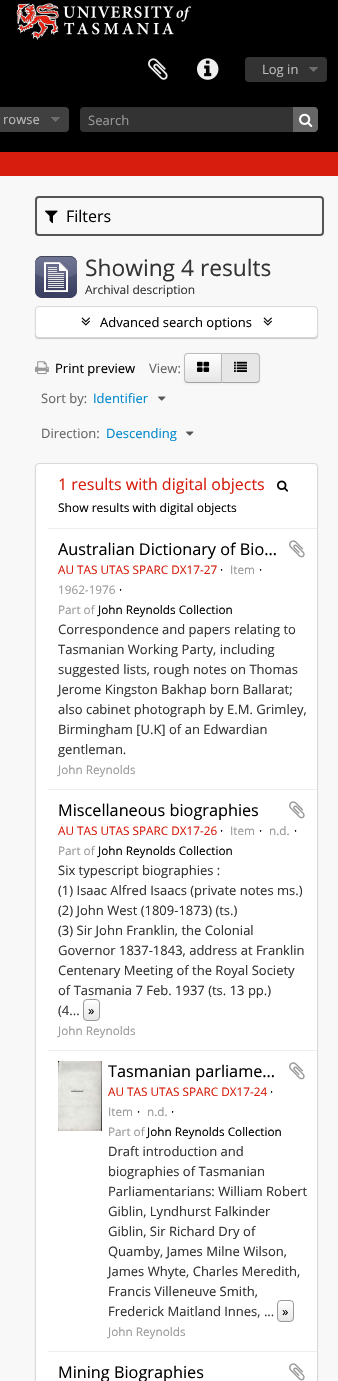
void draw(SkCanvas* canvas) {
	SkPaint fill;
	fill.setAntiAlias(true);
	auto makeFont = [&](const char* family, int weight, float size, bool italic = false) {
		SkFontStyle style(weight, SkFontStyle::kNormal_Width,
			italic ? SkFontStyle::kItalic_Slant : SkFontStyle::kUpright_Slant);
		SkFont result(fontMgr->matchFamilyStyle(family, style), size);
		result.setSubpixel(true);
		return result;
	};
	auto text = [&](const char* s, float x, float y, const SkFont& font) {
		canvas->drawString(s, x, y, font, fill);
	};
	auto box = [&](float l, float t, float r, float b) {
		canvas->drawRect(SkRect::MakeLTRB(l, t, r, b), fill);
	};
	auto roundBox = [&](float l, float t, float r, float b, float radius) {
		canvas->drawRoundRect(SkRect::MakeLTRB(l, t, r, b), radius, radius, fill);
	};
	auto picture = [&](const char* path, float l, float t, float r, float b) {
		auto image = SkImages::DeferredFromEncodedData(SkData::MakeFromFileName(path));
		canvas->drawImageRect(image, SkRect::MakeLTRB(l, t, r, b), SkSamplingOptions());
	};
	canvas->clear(0xFFF8F8F8);
	fill.setColor(0xFF000000);
	box(0, 0, 338, 152);
	picture("image0.png", 16, 3, 191, 40);
	picture("image1.png", 148, 58, 168, 80);
	picture("image2.png", 197, 58, 219, 80);
	fill.setColor(0xFF333333);
	roundBox(245, 57, 327, 82, 4);
	picture("image3.png", 309, 67, 318, 72);
	fill.setColor(0xFF404040);
	roundBox(-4, 107, 69, 132, 4);
	picture("image4.png", 51, 117, 60, 122);
	fill.setColor(0xFF333333);
	roundBox(80, 107, 318, 132, 4);
	fill.setColor(0x12000000);
	canvas->drawPath(SkPathBuilder().moveTo(84, 108).lineTo(314, 108).cubicTo(316, 108, 318, 110, 318, 112).cubicTo(318, 109, 317, 107, 314, 107).lineTo(84, 107).cubicTo(81, 107, 80, 109, 80, 112).cubicTo(80, 110, 82, 108, 84, 108).close().detach(), fill);
	fill.setColor(0xFF666666);
	canvas->drawPath(SkPathBuilder().moveTo(293, 107).lineTo(314, 107).cubicTo(316, 107, 318, 109, 318, 111).lineTo(318, 128).cubicTo(318, 130, 316, 132, 314, 132).lineTo(293, 132).close().detach(), fill);
	picture("image5.png", 299, 113, 313, 127);
	fill.setColor(0xFFD71D0D);
	box(0, 152, 338, 176);
	fill.setStyle(SkPaint::kStroke_Style);
	fill.setStrokeWidth(2);
	fill.setColor(0xFF555555);
	canvas->drawRoundRect(SkRect::MakeLTRB(36, 197, 323, 235), 3, 3, fill);
	picture("image6.png", 45, 210, 58, 224);
	picture("image7.png", 35, 256, 77, 298);
	fill.setStyle(SkPaint::kFill_Style);
	fill.setColor(0x33000000);
	fill.setMaskFilter(SkMaskFilter::MakeBlur(kNormal_SkBlurStyle, 0.5f));
	canvas->drawRoundRect(SkRect::MakeLTRB(35, 307, 318, 339), 4, 4, fill);
	fill.setMaskFilter(nullptr);
	fill.setColor(0xFFFFFFFF);
	canvas->drawRoundRect(SkRect::MakeLTRB(35.5f, 306.5f, 317.5f, 337.5f), 3.5f, 3.5f, fill);
	fill.setStyle(SkPaint::kStroke_Style);
	fill.setStrokeWidth(1);
	fill.setColor(0xFFD9D9D9);
	canvas->drawRoundRect(SkRect::MakeLTRB(35.5f, 306.5f, 317.5f, 337.5f), 3.5f, 3.5f, fill);
	picture("image8.png", 81, 317, 90, 326);
	picture("image8.png", 263, 317, 272, 326);
	picture("image9.png", 35, 361, 49, 375);
	fill.setStyle(SkPaint::kFill_Style);
	fill.setColor(0x0D000000);
	fill.setMaskFilter(SkMaskFilter::MakeBlur(kNormal_SkBlurStyle, 1));
	canvas->drawRoundRect(SkRect::MakeLTRB(184, 354, 222, 384), 4, 4, fill);
	fill.setMaskFilter(nullptr);
	canvas->save();
	canvas->clipPath(SkPathBuilder().moveTo(188, 353).lineTo(222, 353).lineTo(222, 383).lineTo(188, 383).cubicTo(186, 383, 184, 381, 184, 379).lineTo(184, 357).cubicTo(184, 355, 186, 353, 188, 353).close().detach(), true);
	{
		const SkColor colors[] = {0xFFFFFFFF, 0xFFE6E6E6};
		const float stops[] = {0, 1};
		const SkPoint ends[] = {{203, 354}, {203, 382}};
		fill.setShader(SkGradientShader::MakeLinear(ends, colors, stops, 2, SkTileMode::kClamp));
		fill.setAlpha(255);
	}
	box(184, 354, 221, 382);
	canvas->restore();
	fill.setShader(nullptr);
	fill.setColor(0xFFBBBBBB);
	canvas->drawPath(SkPathBuilder().moveTo(188, 353).cubicTo(187, 353, 186, 353.5f, 185, 354).lineTo(186, 355).cubicTo(186.5f, 354.5f, 187, 354, 188, 354).lineTo(221, 354).lineTo(222, 353).close().detach(), fill);
	fill.setColor(0xFFA2A2A2);
	canvas->drawPath(SkPathBuilder().moveTo(222, 383).lineTo(221, 382).lineTo(188, 382).cubicTo(187, 382, 186.5f, 381.5f, 186, 381).lineTo(185, 382).cubicTo(186, 382.5f, 187, 383, 188, 383).close().detach(), fill);
	fill.setColor(0xFFBBBBBB);
	canvas->drawPath(SkPathBuilder().moveTo(184, 357).lineTo(184, 379).cubicTo(184, 380, 184.5f, 381, 185, 382).lineTo(186, 381).cubicTo(185.5f, 380.5f, 185, 380, 185, 379).lineTo(185, 357).cubicTo(185, 356, 185.5f, 355.5f, 186, 355).lineTo(185, 354).cubicTo(184.5f, 355, 184, 356, 184, 357).close().detach(), fill);
	picture("image10.png", 197, 361, 210, 372);
	fill.setColor(0x0D000000);
	fill.setMaskFilter(SkMaskFilter::MakeBlur(kNormal_SkBlurStyle, 1));
	canvas->drawRoundRect(SkRect::MakeLTRB(221, 354, 260, 384), 4, 4, fill);
	fill.setMaskFilter(nullptr);
	fill.setColor(0xFFE6E6E6);
	canvas->drawPath(SkPathBuilder().moveTo(221, 353).lineTo(256, 353).cubicTo(258, 353, 260, 355, 260, 357).lineTo(260, 379).cubicTo(260, 381, 258, 383, 256, 383).lineTo(221, 383).close().detach(), fill);
	fill.setColor(0xFFBBBBBB);
	canvas->drawPath(SkPathBuilder().moveTo(221, 353).lineTo(222, 354).lineTo(256, 354).cubicTo(257, 354, 257.5f, 354.5f, 258, 355).lineTo(259, 354).cubicTo(258, 353.5f, 257, 353, 256, 353).close().detach(), fill);
	canvas->drawPath(SkPathBuilder().moveTo(260, 379).lineTo(260, 357).cubicTo(260, 356, 259.5f, 355, 259, 354).lineTo(258, 355).cubicTo(258.5f, 355.5f, 259, 356, 259, 357).lineTo(259, 379).cubicTo(259, 380, 258.5f, 380.5f, 258, 381).lineTo(259, 382).cubicTo(259.5f, 381, 260, 380, 260, 379).close().detach(), fill);
	fill.setColor(0xFFA2A2A2);
	canvas->drawPath(SkPathBuilder().moveTo(256, 383).cubicTo(257, 383, 258, 382.5f, 259, 382).lineTo(258, 381).cubicTo(257.5f, 381.5f, 257, 382, 256, 382).lineTo(222, 382).lineTo(221, 383).close().detach(), fill);
	fill.setColor(0xFFBBBBBB);
	canvas->drawPath(SkPathBuilder().moveTo(221, 353).lineTo(221, 383).lineTo(222, 382).lineTo(222, 354).close().detach(), fill);
	picture("image11.png", 234, 361, 247, 372);
	picture("image12.png", 158, 396, 166, 401);
	picture("image12.png", 186, 431, 194, 436);
	fill.setColor(0x33000000);
	fill.setMaskFilter(SkMaskFilter::MakeBlur(kNormal_SkBlurStyle, 0.5f));
	canvas->drawRoundRect(SkRect::MakeLTRB(35, 464, 318, 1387), 4, 4, fill);
	fill.setMaskFilter(nullptr);
	fill.setColor(0xFFFFFFFF);
	canvas->drawRoundRect(SkRect::MakeLTRB(35.5f, 463.5f, 317.5f, 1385.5f), 3.5f, 3.5f, fill);
	fill.setStyle(SkPaint::kStroke_Style);
	fill.setColor(0xFFD9D9D9);
	canvas->drawRoundRect(SkRect::MakeLTRB(35.5f, 463.5f, 317.5f, 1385.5f), 3.5f, 3.5f, fill);
	fill.setStyle(SkPaint::kFill_Style);
	fill.setColor(0xFFEEEEEE);
	box(48, 528, 317, 529);
	picture("image13.png", 277, 480, 289, 492);
	box(48, 789, 317, 790);
	picture("image14.png", 289, 540, 305, 558);
	box(48, 1050, 317, 1051);
	picture("image14.png", 289, 801, 305, 819);
	canvas->save();
	canvas->clipPath(SkPathBuilder().moveTo(87, 999).lineTo(96, 999).cubicTo(98, 999, 100, 1001, 100, 1003).lineTo(100, 1017).cubicTo(100, 1019, 98, 1021, 96, 1021).lineTo(87, 1021).cubicTo(85, 1021, 83, 1019, 83, 1017).lineTo(83, 1003).cubicTo(83, 1001, 85, 999, 87, 999).close().detach(), true);
	{
		const SkColor colors[] = {0xFFFFFFFF, 0xFFE6E6E6};
		const float stops[] = {0, 1};
		const SkPoint ends[] = {{92, 1000}, {92, 1020}};
		fill.setShader(SkGradientShader::MakeLinear(ends, colors, stops, 2, SkTileMode::kClamp));
		fill.setAlpha(255);
	}
	box(83, 1000, 100, 1020);
	canvas->restore();
	fill.setStyle(SkPaint::kStroke_Style);
	fill.setShader(nullptr);
	fill.setColor(0xFF999999);
	canvas->drawRoundRect(SkRect::MakeLTRB(83.5f, 999.5f, 99.5f, 1020.5f), 3.5f, 3.5f, fill);
	fill.setStyle(SkPaint::kFill_Style);
	fill.setColor(0xFFEEEEEE);
	box(48, 1351, 317, 1352);
	picture("image15.png", 58, 1061, 102, 1131);
	picture("image14.png", 289, 1062, 305, 1080);
	canvas->save();
	canvas->clipPath(SkPathBuilder().moveTo(281, 1300).lineTo(290, 1300).cubicTo(292, 1300, 294, 1302, 294, 1304).lineTo(294, 1318).cubicTo(294, 1320, 292, 1322, 290, 1322).lineTo(281, 1322).cubicTo(279, 1322, 277, 1320, 277, 1318).lineTo(277, 1304).cubicTo(277, 1302, 279, 1300, 281, 1300).close().detach(), true);
	{
		const SkColor colors[] = {0xFFFFFFFF, 0xFFE6E6E6};
		const float stops[] = {0, 1};
		const SkPoint ends[] = {{286, 1301}, {286, 1321}};
		fill.setShader(SkGradientShader::MakeLinear(ends, colors, stops, 2, SkTileMode::kClamp));
		fill.setAlpha(255);
	}
	box(277, 1301, 294, 1321);
	canvas->restore();
	fill.setStyle(SkPaint::kStroke_Style);
	fill.setShader(nullptr);
	fill.setColor(0xFF999999);
	canvas->drawRoundRect(SkRect::MakeLTRB(277.5f, 1300.5f, 293.5f, 1321.5f), 3.5f, 3.5f, fill);
	picture("image14.png", 289, 1363, 305, 1381);
	auto font1 = makeFont("Open Sans", 400, 13);
	fill.setStyle(SkPaint::kFill_Style);
	fill.setColor(0xFFBBBBBB);
	text("Log in", 262, 74, font1);
	text("rowse", 3, 124, font1);
	fill.setColor(0xFF999999);
	text("Search", 88, 125, font1);
	auto font2 = makeFont("Open Sans", 400, 16);
	fill.setColor(0xFF000000);
	text("Filters", 66, 222, font2);
	auto font3 = makeFont("Open Sans", 400, 22.75f);
	fill.setColor(0xFF333333);
	text("Showing 4 results", 85, 276, font3);
	auto font4 = makeFont("Open Sans", 400, 12);
	text("Archival description", 85, 294, font4);
	fill.setColor(0xFF000000);
	text("Advanced search options", 100, 327, font1);
	text("Print preview", 55, 373, font1);
	fill.setColor(0xFF666666);
	text("View:", 149, 373, font1);
	text("Sort by:", 41, 403, font1);
	fill.setColor(0xFF0088CC);
	text("Identifier", 93, 403, font1);
	fill.setColor(0xFF666666);
	text("Direction:", 41, 438, font1);
	fill.setColor(0xFF0088CC);
	text("Descending", 106, 438, font1);
	fill.setColor(0xFFD71D0D);
	text("1 results with digital objects", 58, 490, font2);
	fill.setColor(0xFF000000);
	text("Show results with digital objects", 58, 512, font4);
	auto font5 = makeFont("Open Sans", 400, 16.25f);
	text("Australian Dictionary of Bio…", 58, 555, font5);
	auto font6 = makeFont("Open Sans", 400, 11.75f);
	fill.setColor(0xFFD71D0D);
	text("AU TAS UTAS SPARC DX17-27", 58, 574, font6);
	fill.setColor(0xFF000000);
	text("·", 220, 574, font6);
	fill.setColor(0xFF999999);
	text("Item", 230, 574, font6);
	fill.setColor(0xFF000000);
	text("·", 259, 574, font6);
	fill.setColor(0xFF999999);
	text("1962-1976", 58, 594, font6);
	fill.setColor(0xFF000000);
	text("·", 119, 594, font6);
	fill.setColor(0xFF999999);
	text("Part of", 58, 614, font6);
	fill.setColor(0xFF000000);
	text("John Reynolds Collection", 98, 614, font6);
	fill.setColor(0xFF333333);
	text("Correspondence and papers relating to", 58, 634, font1);
	text("Tasmanian Working Party, including", 58, 654, font1);
	text("suggested lists, rough notes on Thomas", 58, 674, font1);
	text("Jerome Kingston Bakhap born Ballarat;", 58, 694, font1);
	text("also cabinet photograph by E.M. Grimley,", 58, 714, font1);
	text("Birmingham [U.K] of an Edwardian", 58, 734, font1);
	text("gentleman.", 58, 754, font1);
	fill.setColor(0xFF999999);
	text("John Reynolds", 58, 774, font6);
	fill.setColor(0xFF000000);
	text("Miscellaneous biographies", 58, 816, font5);
	fill.setColor(0xFFD71D0D);
	text("AU TAS UTAS SPARC DX17-26", 58, 835, font6);
	fill.setColor(0xFF000000);
	text("·", 220, 835, font6);
	fill.setColor(0xFF999999);
	text("Item", 230, 835, font6);
	fill.setColor(0xFF000000);
	text("·", 259, 835, font6);
	fill.setColor(0xFF999999);
	text("n.d.", 269, 835, font6);
	fill.setColor(0xFF000000);
	text("·", 294, 835, font6);
	fill.setColor(0xFF999999);
	text("Part of", 58, 855, font6);
	fill.setColor(0xFF000000);
	text("John Reynolds Collection", 98, 855, font6);
	fill.setColor(0xFF333333);
	text("Six typescript biographies :", 58, 875, font1);
	text("(1) Isaac Alfred Isaacs (private notes ms.)", 58, 895, font1);
	text("(2) John West (1809-1873) (ts.)", 58, 915, font1);
	text("(3) Sir John Franklin, the Colonial", 58, 935, font1);
	text("Governor 1837-1843, address at Franklin", 58, 955, font1);
	text("Centenary Meeting of the Royal Society", 58, 975, font1);
	text("of Tasmania 7 Feb. 1937 (ts. 13 pp.)", 58, 995, font1);
	text("(4...", 58, 1015, font1);
	fill.setColor(0xFF000000);
	text("»", 88, 1015, font1);
	fill.setColor(0xFF999999);
	text("John Reynolds", 58, 1035, font6);
	fill.setColor(0xFF000000);
	text("Tasmanian parliame…", 108, 1077, font5);
	fill.setColor(0xFFD71D0D);
	text("AU TAS UTAS SPARC DX17-24", 108, 1096, font6);
	fill.setColor(0xFF000000);
	text("·", 270, 1096, font6);
	fill.setColor(0xFF999999);
	text("Item", 108, 1116, font6);
	fill.setColor(0xFF000000);
	text("·", 137, 1116, font6);
	fill.setColor(0xFF999999);
	text("n.d.", 147, 1116, font6);
	fill.setColor(0xFF000000);
	text("·", 171, 1116, font6);
	fill.setColor(0xFF999999);
	text("Part of", 108, 1136, font6);
	fill.setColor(0xFF000000);
	text("John Reynolds Collection", 147, 1136, font6);
	fill.setColor(0xFF333333);
	text("Draft introduction and", 108, 1156, font1);
	text("biographies of Tasmanian", 108, 1176, font1);
	text("Parliamentarians: William Robert", 108, 1196, font1);
	text("Giblin, Lyndhurst Falkinder", 108, 1216, font1);
	text("Giblin, Sir Richard Dry of", 108, 1236, font1);
	text("Quamby, James Milne Wilson,", 108, 1256, font1);
	text("James Whyte, Charles Meredith,", 108, 1276, font1);
	text("Francis Villeneuve Smith,", 108, 1296, font1);
	text("Frederick Maitland Innes, ...", 108, 1316, font1);
	fill.setColor(0xFF000000);
	text("»", 282, 1316, font1);
	fill.setColor(0xFF999999);
	text("John Reynolds", 108, 1336, font6);
	fill.setColor(0xFF000000);
	text("Mining Biographies", 58, 1378, font5);
}
